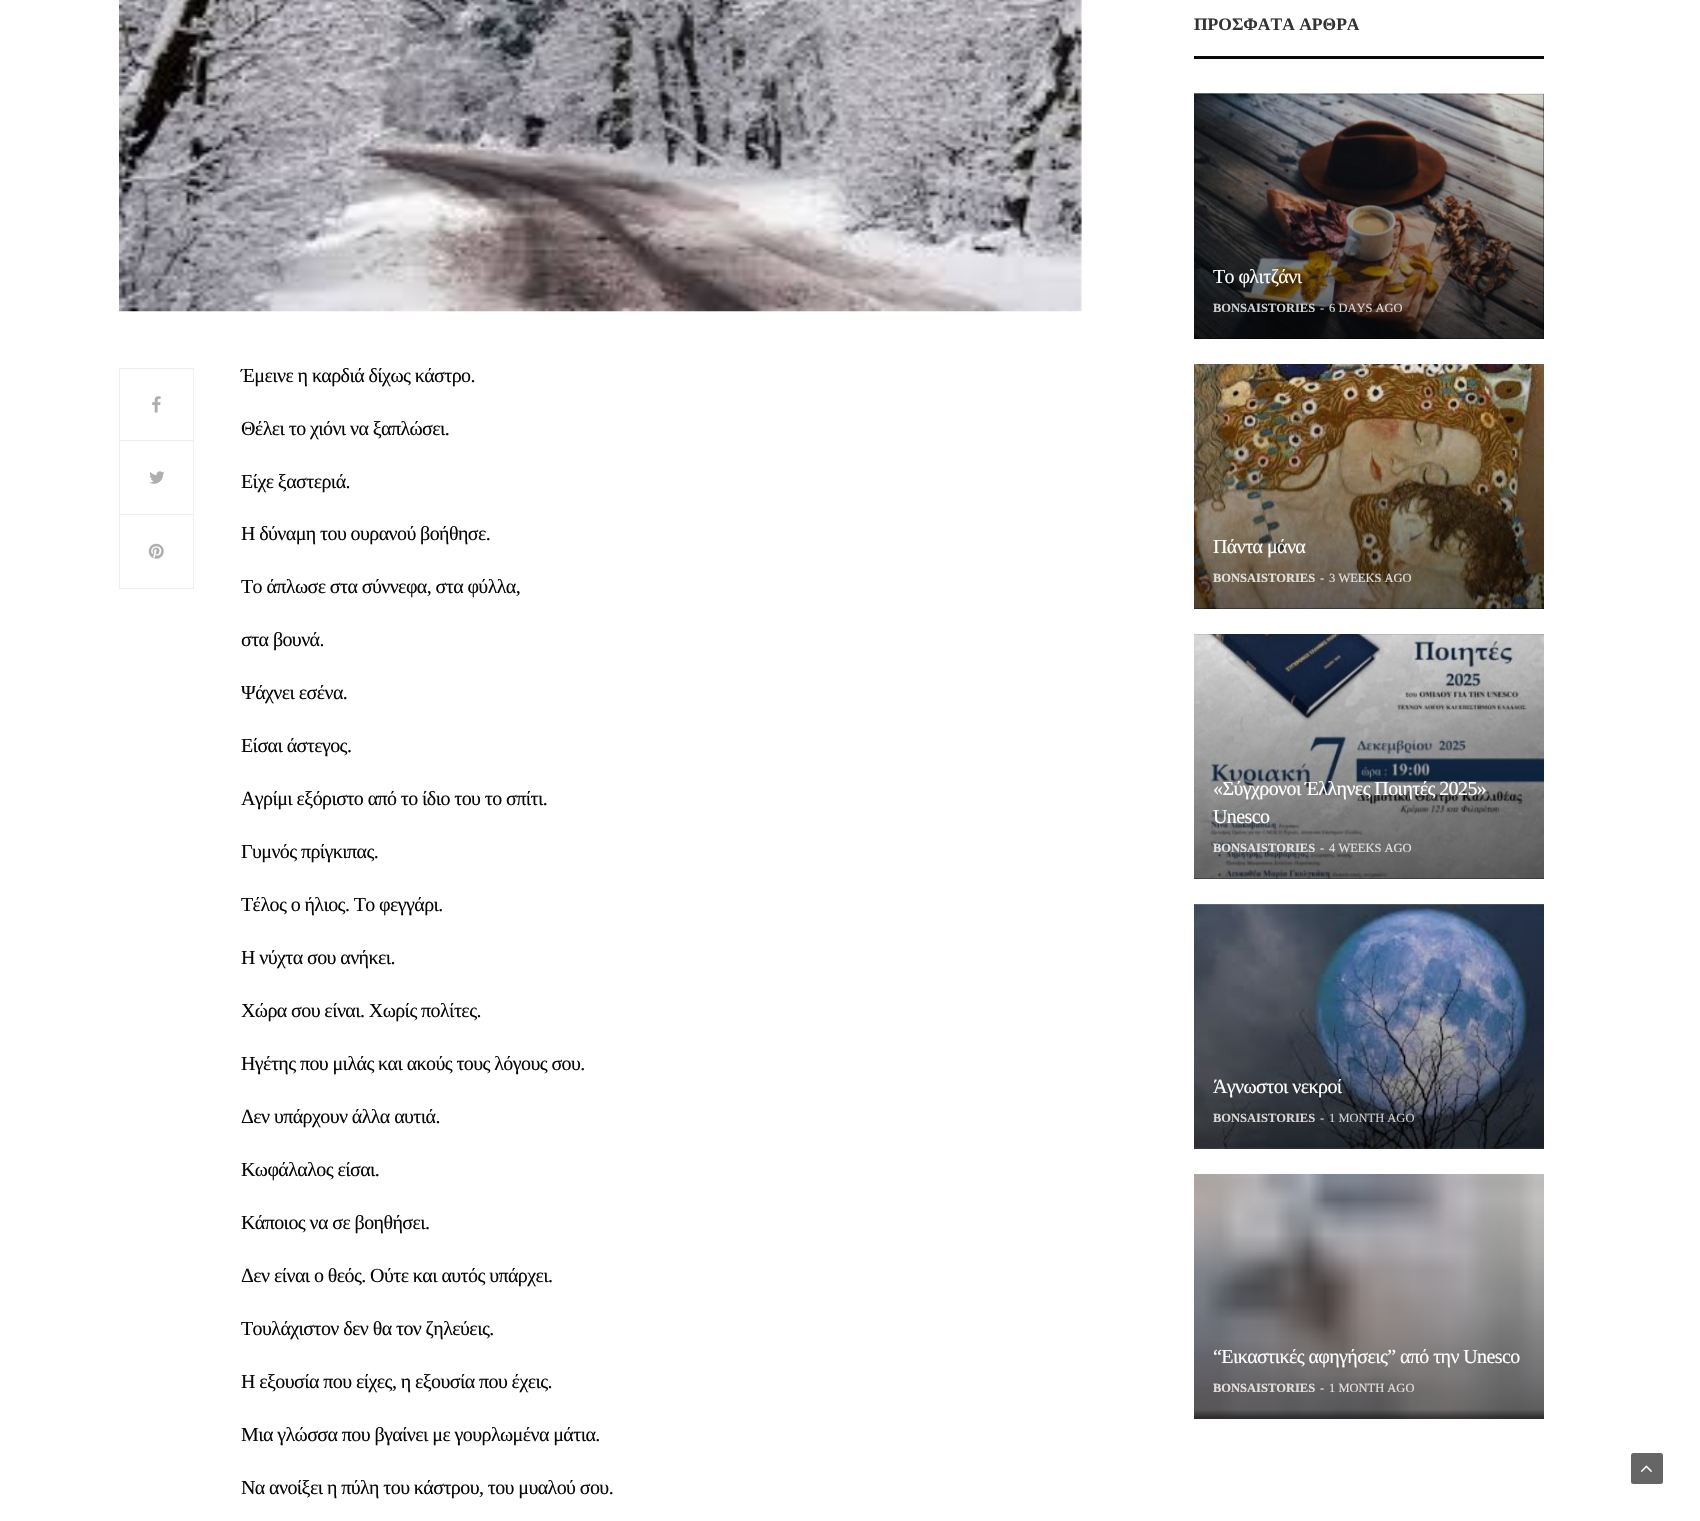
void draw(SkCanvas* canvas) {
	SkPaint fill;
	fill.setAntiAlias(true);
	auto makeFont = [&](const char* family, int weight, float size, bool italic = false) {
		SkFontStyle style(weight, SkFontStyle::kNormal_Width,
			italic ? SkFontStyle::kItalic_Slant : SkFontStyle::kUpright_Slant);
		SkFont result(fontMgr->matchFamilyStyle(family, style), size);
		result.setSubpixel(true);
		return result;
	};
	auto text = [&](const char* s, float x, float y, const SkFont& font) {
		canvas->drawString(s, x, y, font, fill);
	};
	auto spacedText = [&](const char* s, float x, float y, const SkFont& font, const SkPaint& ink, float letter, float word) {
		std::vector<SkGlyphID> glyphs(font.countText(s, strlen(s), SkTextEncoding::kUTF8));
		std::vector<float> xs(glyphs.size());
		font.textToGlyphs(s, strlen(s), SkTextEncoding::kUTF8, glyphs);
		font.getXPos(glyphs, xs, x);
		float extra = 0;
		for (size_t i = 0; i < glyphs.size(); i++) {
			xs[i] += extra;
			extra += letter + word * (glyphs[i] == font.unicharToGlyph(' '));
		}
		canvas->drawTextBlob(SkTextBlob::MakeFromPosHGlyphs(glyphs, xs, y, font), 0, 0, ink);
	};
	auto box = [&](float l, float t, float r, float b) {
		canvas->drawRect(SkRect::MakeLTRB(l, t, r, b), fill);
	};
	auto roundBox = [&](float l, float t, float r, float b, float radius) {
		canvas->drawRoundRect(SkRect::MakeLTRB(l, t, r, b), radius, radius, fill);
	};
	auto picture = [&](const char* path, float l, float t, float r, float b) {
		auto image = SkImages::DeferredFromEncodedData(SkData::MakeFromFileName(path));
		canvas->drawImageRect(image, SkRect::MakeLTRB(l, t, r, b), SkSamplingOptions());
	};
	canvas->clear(0xFFFFFFFF);
	picture("image0.png", 119, 0, 1082, 312);
	fill.setStyle(SkPaint::kStroke_Style);
	fill.setStrokeWidth(1);
	fill.setColor(0xFFEEEEEE);
	canvas->drawRect(SkRect::MakeLTRB(119.5f, 368.5f, 193.5f, 440.5f), fill);
	picture("image1.png", 152, 396, 161, 413);
	fill.setStyle(SkPaint::kFill_Style);
	box(193, 441, 194, 589);
	box(119, 514, 194, 515);
	box(119, 441, 120, 515);
	picture("image2.png", 149, 471, 165, 484);
	box(119, 588, 194, 589);
	box(119, 515, 120, 589);
	picture("image3.png", 148, 543, 164, 559);
	fill.setColor(0xFF080808);
	box(1194, 56, 1544, 59);
	fill.setColor(0xFF000000);
	box(1194, 94, 1544, 339);
	picture("image4.png", 1194, 93, 1544, 339);
	{
		const SkColor colors[] = {0x14000000, 0x8F000000};
		const float stops[] = {0, 1};
		const SkPoint ends[] = {{1369, 94}, {1369, 339}};
		fill.setShader(SkGradientShader::MakeLinear(ends, colors, stops, 2, SkTileMode::kClamp));
		fill.setAlpha(255);
	}
	box(1194, 94, 1544, 339);
	fill.setShader(nullptr);
	fill.setColor(0xFF000000);
	box(1194, 607, 1544, 609);
	picture("image5.png", 1194, 364, 1544, 609);
	{
		const SkColor colors[] = {0x14000000, 0x8F000000};
		const float stops[] = {0, 1};
		const SkPoint ends[] = {{1369, 364}, {1369, 609}};
		fill.setShader(SkGradientShader::MakeLinear(ends, colors, stops, 2, SkTileMode::kClamp));
		fill.setAlpha(255);
	}
	box(1194, 364, 1544, 609);
	fill.setShader(nullptr);
	fill.setColor(0xFF000000);
	box(1194, 634, 1544, 879);
	picture("image6.png", 1194, 634, 1544, 879);
	{
		const SkColor colors[] = {0x14000000, 0x8F000000};
		const float stops[] = {0, 1};
		const SkPoint ends[] = {{1369, 634}, {1369, 879}};
		fill.setShader(SkGradientShader::MakeLinear(ends, colors, stops, 2, SkTileMode::kClamp));
		fill.setAlpha(255);
	}
	box(1194, 634, 1544, 879);
	picture("image7.png", 1194, 904, 1544, 1149);
	{
		const SkColor colors[] = {0x14000000, 0x8F000000};
		const float stops[] = {0, 1};
		const SkPoint ends[] = {{1369, 904}, {1369, 1149}};
		fill.setShader(SkGradientShader::MakeLinear(ends, colors, stops, 2, SkTileMode::kClamp));
		fill.setAlpha(255);
	}
	box(1194, 904, 1544, 1149);
	fill.setShader(nullptr);
	fill.setColor(0xFF000000);
	box(1194, 1174, 1544, 1419);
	picture("image8.png", 1194, 1174, 1544, 1419);
	{
		const SkColor colors[] = {0x14000000, 0x8F000000};
		const float stops[] = {0, 1};
		const SkPoint ends[] = {{1369, 1174}, {1369, 1419}};
		fill.setShader(SkGradientShader::MakeLinear(ends, colors, stops, 2, SkTileMode::kClamp));
		fill.setAlpha(255);
	}
	box(1194, 1174, 1544, 1419);
	fill.setShader(nullptr);
	fill.setColor(0xFF666666);
	roundBox(1631, 1453, 1663, 1484, 2.5f);
	picture("image9.png", 1640, 1465, 1652, 1472);
	auto font1 = makeFont("Liberation Serif", 400, 20);
	fill.setColor(0xFF080808);
	spacedText("Έμεινε η καρδιά δίχως κάστρο.", 241, 382, font1, fill, -0.6f, 0);
	spacedText("Θέλει το χιόνι να ξαπλώσει.", 241, 435, font1, fill, -0.6f, 0);
	spacedText("Είχε ξαστεριά.", 241, 488, font1, fill, -0.6f, 0);
	spacedText("Η δύναμη του ουρανού βοήθησε.", 241, 540, font1, fill, -0.6f, 0);
	spacedText("Το άπλωσε στα σύννεφα, στα φύλλα,", 241, 593, font1, fill, -0.6f, 0);
	spacedText("στα βουνά.", 241, 646, font1, fill, -0.6f, 0);
	spacedText("Ψάχνει εσένα.", 241, 699, font1, fill, -0.6f, 0);
	spacedText("Είσαι άστεγος.", 241, 752, font1, fill, -0.6f, 0);
	spacedText("Αγρίμι εξόριστο από το ίδιο του το σπίτι.", 241, 805, font1, fill, -0.6f, 0);
	spacedText("Γυμνός πρίγκιπας.", 241, 858, font1, fill, -0.6f, 0);
	spacedText("Τέλος ο ήλιος. Το φεγγάρι.", 241, 911, font1, fill, -0.6f, 0);
	spacedText("Η νύχτα σου ανήκει.", 241, 964, font1, fill, -0.6f, 0);
	spacedText("Χώρα σου είναι. Χωρίς πολίτες.", 241, 1017, font1, fill, -0.6f, 0);
	spacedText("Ηγέτης που μιλάς και ακούς τους λόγους σου.", 241, 1070, font1, fill, -0.6f, 0);
	spacedText("Δεν υπάρχουν άλλα αυτιά.", 241, 1123, font1, fill, -0.6f, 0);
	spacedText("Κωφάλαλος είσαι.", 241, 1176, font1, fill, -0.6f, 0);
	spacedText("Κάποιος να σε βοηθήσει.", 241, 1229, font1, fill, -0.6f, 0);
	spacedText("Δεν είναι ο θεός. Ούτε και αυτός υπάρχει.", 241, 1282, font1, fill, -0.6f, 0);
	spacedText("Τουλάχιστον δεν θα τον ζηλεύεις.", 241, 1335, font1, fill, -0.6f, 0);
	spacedText("Η εξουσία που είχες, η εξουσία που έχεις.", 241, 1388, font1, fill, -0.6f, 0);
	spacedText("Μια γλώσσα που βγαίνει με γουρλωμένα μάτια.", 241, 1441, font1, fill, -0.6f, 0);
	spacedText("Να ανοίξει η πύλη του κάστρου, του μυαλού σου.", 241, 1494, font1, fill, -0.6f, 0);
	auto font2 = makeFont("Liberation Serif", 700, 17.5f);
	fill.setColor(0xFF333333);
	text("ΠΡΟΣΦΑΤΑ ΑΡΘΡΑ", 1194, 30, font2);
	fill.setColor(0xFFFFFFFF);
	spacedText("Το φλιτζάνι", 1213, 283, font1, fill, -0.6f, 0);
	auto font3 = makeFont("Liberation Serif", 700, 12.5f);
	fill.setColor(0xFFCFD0D0);
	text("BONSAISTORIES", 1213, 312, font3);
	auto font4 = makeFont("Liberation Serif", 400, 12.5f);
	text("-", 1320, 312, font4);
	fill.setColor(0xFFDAD6D4);
	text("6 DAYS AGO", 1329, 312, font4);
	fill.setColor(0xFFFFFFFF);
	spacedText("Πάντα μάνα", 1213, 553, font1, fill, -0.6f, 0);
	fill.setColor(0xFFE2DFDB);
	text("BONSAISTORIES", 1213, 582, font3);
	text("-", 1320, 582, font4);
	text("3 WEEKS AGO", 1329, 582, font4);
	fill.setColor(0xFFFFFFFF);
	spacedText("«Σύγχρονοι Έλληνες Ποιητές 2025»", 1213, 795, font1, fill, -0.6f, 0);
	spacedText("Unesco", 1213, 823, font1, fill, -0.6f, 0);
	fill.setColor(0xFFE1E2E2);
	text("BONSAISTORIES", 1213, 852, font3);
	text("-", 1320, 852, font4);
	text("4 WEEKS AGO", 1329, 852, font4);
	fill.setColor(0xFFFFFFFF);
	spacedText("Άγνωστοι νεκροί", 1213, 1093, font1, fill, -0.6f, 0);
	fill.setColor(0xFFDAD6D4);
	text("BONSAISTORIES", 1213, 1122, font3);
	text("-", 1320, 1122, font4);
	fill.setColor(0xFFCFD0D0);
	text("1 MONTH AGO", 1329, 1122, font4);
	fill.setColor(0xFFFFFFFF);
	spacedText("“Εικαστικές αφηγήσεις” από την Unesco", 1213, 1363, font1, fill, -0.6f, 0);
	fill.setColor(0xFFE2DFDB);
	text("BONSAISTORIES", 1213, 1392, font3);
	text("-", 1320, 1392, font4);
	text("1 MONTH AGO", 1329, 1392, font4);
}
